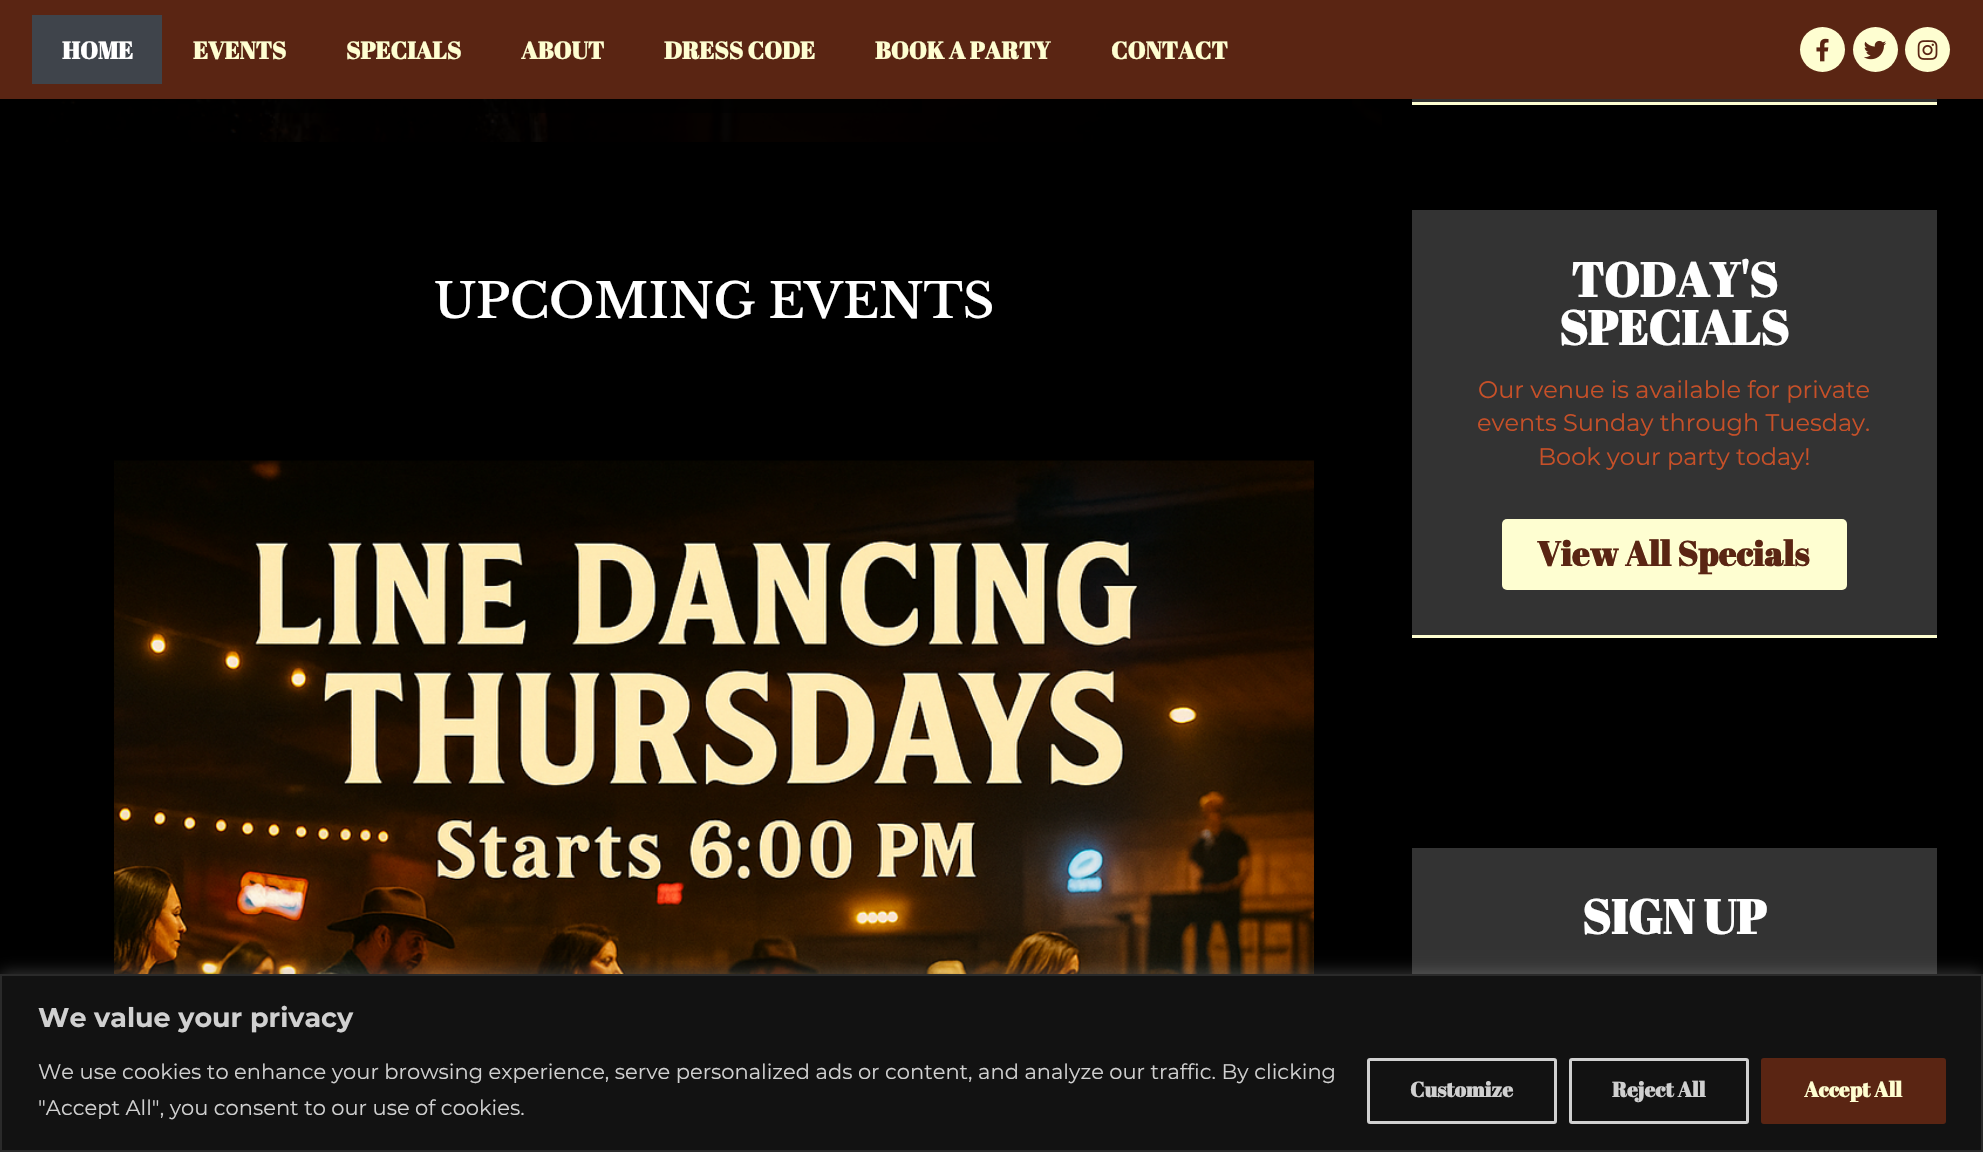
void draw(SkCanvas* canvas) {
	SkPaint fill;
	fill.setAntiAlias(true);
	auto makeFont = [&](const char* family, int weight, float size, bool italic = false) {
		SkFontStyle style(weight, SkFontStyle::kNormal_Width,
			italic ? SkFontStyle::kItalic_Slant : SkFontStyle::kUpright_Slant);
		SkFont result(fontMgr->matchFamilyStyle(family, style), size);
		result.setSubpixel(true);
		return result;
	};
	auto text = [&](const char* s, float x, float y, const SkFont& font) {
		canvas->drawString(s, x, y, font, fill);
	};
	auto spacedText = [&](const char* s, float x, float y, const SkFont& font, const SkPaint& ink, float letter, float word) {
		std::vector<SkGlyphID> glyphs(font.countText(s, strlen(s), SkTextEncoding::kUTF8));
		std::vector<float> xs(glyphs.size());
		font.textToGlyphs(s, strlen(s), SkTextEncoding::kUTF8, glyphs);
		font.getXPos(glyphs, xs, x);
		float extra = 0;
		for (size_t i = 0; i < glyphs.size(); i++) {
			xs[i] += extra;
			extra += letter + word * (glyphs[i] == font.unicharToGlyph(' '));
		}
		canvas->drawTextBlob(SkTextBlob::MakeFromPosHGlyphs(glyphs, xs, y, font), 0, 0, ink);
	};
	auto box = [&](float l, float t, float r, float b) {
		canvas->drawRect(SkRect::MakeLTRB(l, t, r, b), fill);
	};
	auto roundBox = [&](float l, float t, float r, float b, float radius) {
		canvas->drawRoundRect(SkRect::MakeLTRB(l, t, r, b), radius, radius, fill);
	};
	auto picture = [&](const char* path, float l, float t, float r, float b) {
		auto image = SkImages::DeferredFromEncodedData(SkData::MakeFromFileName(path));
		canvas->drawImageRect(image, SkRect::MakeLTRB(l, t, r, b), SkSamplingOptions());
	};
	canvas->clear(0xFF000000);
	fill.setColor(0xFF5A2513);
	box(0, 0, 1983, 99);
	fill.setColor(0xFF3F444B);
	box(32, 15, 162, 84);
	fill.setColor(0xFFFEFED1);
	canvas->drawCircle(1822.5f, 49.5f, 22.5f, fill);
	picture("image0.png", 1816, 38, 1829, 62);
	canvas->drawCircle(1875.5f, 49.5f, 22.5f, fill);
	picture("image1.png", 1864, 40, 1887, 60);
	canvas->drawCircle(1927.5f, 49.5f, 22.5f, fill);
	picture("image2.png", 1917, 40, 1938, 60);
	picture("image3.png", 47, 99, 1158, 142);
	fill.setColor(0xB0000000);
	box(196, 99, 922, 113);
	picture("image4.png", 1352, 99, 1382, 127);
	picture("image5.png", 114, 460, 1314, 974);
	fill.setColor(0xFF333333);
	box(1412, 99, 1937, 102);
	fill.setColor(0xFFFEFED1);
	box(1412, 102, 1937, 105);
	fill.setColor(0xFF333333);
	box(1412, 210, 1937, 635);
	fill.setColor(0xFFFEFED1);
	box(1412, 635, 1937, 638);
	roundBox(1502, 519, 1847, 590, 5);
	fill.setColor(0xFF333333);
	box(1412, 848, 1937, 974);
	fill.setColor(0x4DACABAB);
	fill.setMaskFilter(SkMaskFilter::MakeBlur(kNormal_SkBlurStyle, 7.5f));
	canvas->drawRect(SkRect::MakeLTRB(0, 972, 1983, 1151), fill);
	fill.setMaskFilter(nullptr);
	fill.setColor(0xFF121212);
	canvas->drawRect(SkRect::MakeLTRB(1, 975, 1982, 1151), fill);
	fill.setStyle(SkPaint::kStroke_Style);
	fill.setStrokeWidth(2);
	fill.setColor(0xFF2A2A2A);
	canvas->drawRect(SkRect::MakeLTRB(1, 975, 1982, 1151), fill);
	fill.setStrokeWidth(3);
	fill.setColor(0xFFD0D0D0);
	canvas->drawRoundRect(SkRect::MakeLTRB(1368.5f, 1059.5f, 1555.5f, 1122.5f), 1.5f, 1.5f, fill);
	canvas->drawRoundRect(SkRect::MakeLTRB(1570.5f, 1059.5f, 1747.5f, 1122.5f), 1.5f, 1.5f, fill);
	fill.setStyle(SkPaint::kFill_Style);
	fill.setColor(0xFF5A2513);
	canvas->drawRoundRect(SkRect::MakeLTRB(1762.5f, 1059.5f, 1944.5f, 1122.5f), 1.5f, 1.5f, fill);
	fill.setStyle(SkPaint::kStroke_Style);
	canvas->drawRoundRect(SkRect::MakeLTRB(1762.5f, 1059.5f, 1944.5f, 1122.5f), 1.5f, 1.5f, fill);
	auto font1 = makeFont("Abril Fatface", 700, 24);
	fill.setStyle(SkPaint::kFill_Style);
	fill.setColor(0xFFFFFFFF);
	text("HOME", 62, 59, font1);
	fill.setColor(0xFFFEFED1);
	text("EVENTS", 193, 59, font1);
	text("SPECIALS", 346, 59, font1);
	text("ABOUT", 521, 59, font1);
	text("DRESS CODE", 664, 59, font1);
	text("BOOK A PARTY", 875, 59, font1);
	text("CONTACT", 1111, 59, font1);
	auto font2 = makeFont("Libre Baskerville", 600, 48);
	fill.setColor(0xFFFFFFFF);
	text("UPCOMING EVENTS", 434, 318, font2);
	auto font3 = makeFont("Abril Fatface", 700, 48);
	text("TODAY'S", 1571, 297, font3);
	text("SPECIALS", 1559, 345, font3);
	auto font4 = makeFont("Montserrat", 400, 24);
	fill.setColor(0xFFC75028);
	text("Our venue is available for private", 1478, 398, font4);
	text("events Sunday through Tuesday.", 1477, 431, font4);
	text("Book your party today!", 1538, 465, font4);
	auto font5 = makeFont("Abril Fatface", 700, 34.5f);
	fill.setColor(0xFF5A2513);
	spacedText("View All Specials", 1537, 566, font5, fill, 0.1f, 0);
	fill.setColor(0xFFFFFFFF);
	text("SIGN UP", 1582, 934, font3);
	auto font6 = makeFont("Montserrat", 700, 27);
	fill.setColor(0xFFD0D0D0);
	text("We value your privacy", 38, 1027, font6);
	auto font7 = makeFont("Montserrat", 400, 21);
	text("We use cookies to enhance your browsing experience, serve personalized ads or content, and analyze our traffic. By clicking", 38, 1079, font7);
	text("\"Accept All\", you consent to our use of cookies.", 38, 1115, font7);
	auto font8 = makeFont("Abril Fatface", 700, 21);
	text("Customize", 1410, 1097, font8);
	text("Reject All", 1612, 1097, font8);
	fill.setColor(0xFFFEFED1);
	text("Accept All", 1804, 1097, font8);
}
